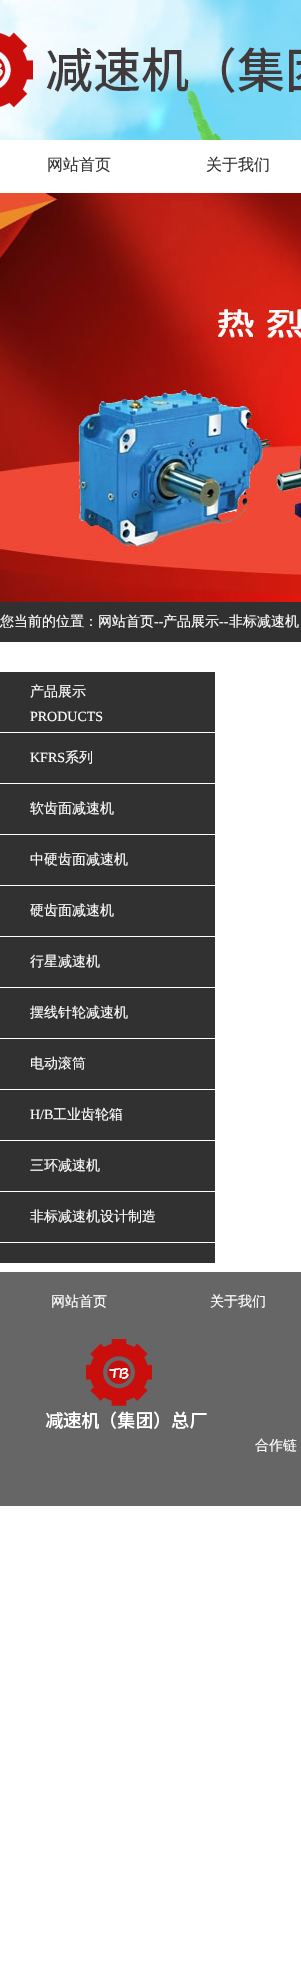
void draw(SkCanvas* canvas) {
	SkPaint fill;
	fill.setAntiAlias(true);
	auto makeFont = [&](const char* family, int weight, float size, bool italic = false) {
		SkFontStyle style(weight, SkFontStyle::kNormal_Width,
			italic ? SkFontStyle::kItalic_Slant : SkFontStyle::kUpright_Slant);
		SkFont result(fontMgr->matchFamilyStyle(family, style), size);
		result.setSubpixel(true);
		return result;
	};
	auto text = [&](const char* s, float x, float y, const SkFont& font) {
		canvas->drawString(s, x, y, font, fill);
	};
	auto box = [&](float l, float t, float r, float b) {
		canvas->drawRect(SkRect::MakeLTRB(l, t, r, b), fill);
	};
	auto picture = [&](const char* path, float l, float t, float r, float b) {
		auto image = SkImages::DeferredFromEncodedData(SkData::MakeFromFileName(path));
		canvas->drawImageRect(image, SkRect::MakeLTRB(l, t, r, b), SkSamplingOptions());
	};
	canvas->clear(0xFFFFFFFF);
	picture("image0.png", 0, 0, 301, 140);
	picture("image1.png", 0, 193, 301, 602);
	fill.setColor(0xFF313131);
	box(0, 602, 301, 642);
	box(0, 672, 215, 1263);
	fill.setColor(0xFFFFFFFF);
	box(0, 732, 215, 733);
	box(0, 783, 215, 784);
	box(0, 834, 215, 835);
	box(0, 885, 215, 886);
	box(0, 936, 215, 937);
	box(0, 987, 215, 988);
	box(0, 1038, 215, 1039);
	box(0, 1089, 215, 1090);
	box(0, 1140, 215, 1141);
	box(0, 1191, 215, 1192);
	box(0, 1242, 215, 1243);
	fill.setColor(0xFF666666);
	box(0, 1272, 301, 1506);
	picture("image2.png", 45, 1337, 207, 1429);
	auto font1 = makeFont("WenQuanYi Zen Hei", 500, 16);
	fill.setColor(0xFF333333);
	text("网站首页", 47, 170, font1);
	text("关于我们", 206, 170, font1);
	auto font2 = makeFont("WenQuanYi Zen Hei", 500, 14);
	fill.setColor(0xFFFFFFFF);
	text("您当前的位置：网站首页", 0, 626, font2);
	auto font3 = makeFont("Liberation Serif", 400, 14);
	text("--", 154, 626, font3);
	text("产品展示", 163, 626, font2);
	text("--", 219, 626, font3);
	text("非标减速机", 229, 626, font2);
	text("产品展示", 30, 696, font2);
	text("PRODUCTS", 30, 721, font3);
	text("KFRS", 30, 762, font3);
	text("系列", 65, 762, font2);
	text("软齿面减速机", 30, 813, font2);
	text("中硬齿面减速机", 30, 864, font2);
	text("硬齿面减速机", 30, 915, font2);
	text("行星减速机", 30, 966, font2);
	text("摆线针轮减速机", 30, 1017, font2);
	text("电动滚筒", 30, 1068, font2);
	text("H/B", 30, 1119, font3);
	text("工业齿轮箱", 53, 1119, font2);
	text("三环减速机", 30, 1170, font2);
	text("非标减速机设计制造", 30, 1221, font2);
	text("网站首页", 51, 1306, font2);
	text("关于我们", 210, 1306, font2);
	text("合作链", 255, 1450, font2);
}
